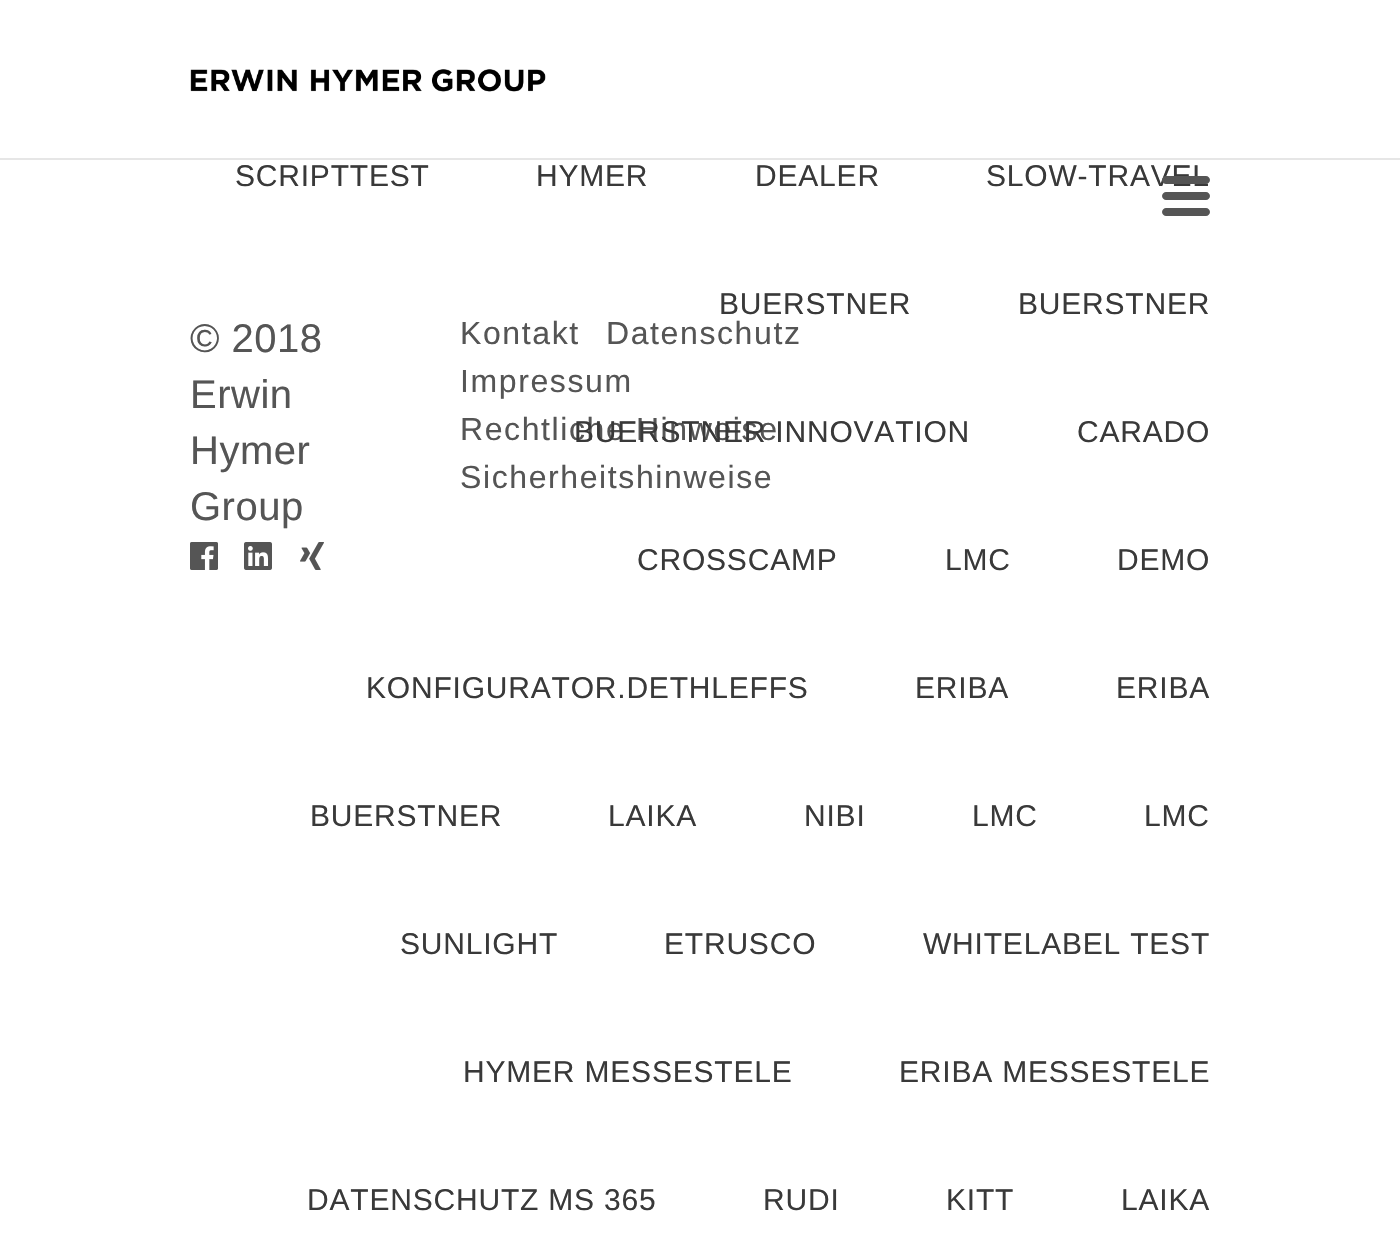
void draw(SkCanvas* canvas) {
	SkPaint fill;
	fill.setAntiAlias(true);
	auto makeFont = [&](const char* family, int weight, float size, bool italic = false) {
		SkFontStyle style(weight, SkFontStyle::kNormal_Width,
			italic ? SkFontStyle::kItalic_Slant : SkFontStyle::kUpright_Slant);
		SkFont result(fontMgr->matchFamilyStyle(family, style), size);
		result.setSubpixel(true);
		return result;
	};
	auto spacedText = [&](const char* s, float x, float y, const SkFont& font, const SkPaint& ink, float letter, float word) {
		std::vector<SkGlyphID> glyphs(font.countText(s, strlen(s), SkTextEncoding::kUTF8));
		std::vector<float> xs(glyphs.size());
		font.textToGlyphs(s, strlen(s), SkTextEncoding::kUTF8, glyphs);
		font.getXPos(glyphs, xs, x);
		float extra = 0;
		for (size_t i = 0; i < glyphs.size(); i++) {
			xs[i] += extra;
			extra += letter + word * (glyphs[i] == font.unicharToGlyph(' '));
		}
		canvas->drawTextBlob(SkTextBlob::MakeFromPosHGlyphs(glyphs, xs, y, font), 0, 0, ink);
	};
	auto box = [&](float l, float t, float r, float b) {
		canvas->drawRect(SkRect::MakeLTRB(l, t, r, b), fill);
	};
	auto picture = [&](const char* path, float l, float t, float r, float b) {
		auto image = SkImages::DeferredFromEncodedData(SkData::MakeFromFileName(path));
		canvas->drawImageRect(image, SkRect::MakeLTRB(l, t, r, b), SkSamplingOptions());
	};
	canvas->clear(0xFFFFFFFF);
	fill.setColor(0xFFE6E6E6);
	box(0, 158, 1400, 160);
	picture("image0.png", 190, 69, 546, 92);
	fill.setColor(0xFF555555);
	canvas->drawPath(SkPathBuilder().moveTo(1166, 192).lineTo(1186, 192).lineTo(1186, 200).lineTo(1166, 200).cubicTo(1164, 200, 1162, 198, 1162, 196).cubicTo(1162, 194, 1164, 192, 1166, 192).close().detach(), fill);
	canvas->drawPath(SkPathBuilder().moveTo(1186, 192).lineTo(1206, 192).cubicTo(1208, 192, 1210, 194, 1210, 196).cubicTo(1210, 198, 1208, 200, 1206, 200).lineTo(1186, 200).close().detach(), fill);
	canvas->drawPath(SkPathBuilder().moveTo(1166, 208).lineTo(1186, 208).lineTo(1186, 216).lineTo(1166, 216).cubicTo(1164, 216, 1162, 214, 1162, 212).cubicTo(1162, 210, 1164, 208, 1166, 208).close().detach(), fill);
	canvas->drawPath(SkPathBuilder().moveTo(1186, 208).lineTo(1206, 208).cubicTo(1208, 208, 1210, 210, 1210, 212).cubicTo(1210, 214, 1208, 216, 1206, 216).lineTo(1186, 216).close().detach(), fill);
	picture("image1.png", 190, 542, 218, 570);
	picture("image2.png", 244, 542, 272, 570);
	picture("image3.png", 300, 542, 324, 570);
	auto font1 = makeFont("Liberation Sans", 400, 30);
	fill.setColor(0xFF393939);
	spacedText("SCRIPTTEST", 235, 186, font1, fill, 0.8f, 0);
	spacedText("HYMER", 536, 186, font1, fill, 0.8f, 0);
	spacedText("DEALER", 755, 186, font1, fill, 0.8f, 0);
	spacedText("SLOW-TRAVEL", 986, 186, font1, fill, 0.8f, 0);
	spacedText("BUERSTNER", 719, 314, font1, fill, 0.8f, 0);
	spacedText("BUERSTNER", 1018, 314, font1, fill, 0.8f, 0);
	spacedText("CARADO", 1077, 442, font1, fill, 0.8f, 0);
	spacedText("CROSSCAMP", 637, 570, font1, fill, 0.8f, 0);
	spacedText("LMC", 945, 570, font1, fill, 0.8f, 0);
	spacedText("DEMO", 1117, 570, font1, fill, 0.8f, 0);
	spacedText("KONFIGURATOR.DETHLEFFS", 366, 698, font1, fill, 0.8f, 0);
	spacedText("ERIBA", 915, 698, font1, fill, 0.8f, 0);
	spacedText("ERIBA", 1116, 698, font1, fill, 0.8f, 0);
	spacedText("BUERSTNER", 310, 826, font1, fill, 0.8f, 0);
	spacedText("LAIKA", 608, 826, font1, fill, 0.8f, 0);
	spacedText("NIBI", 804, 826, font1, fill, 0.8f, 0);
	spacedText("LMC", 972, 826, font1, fill, 0.8f, 0);
	spacedText("LMC", 1144, 826, font1, fill, 0.8f, 0);
	spacedText("SUNLIGHT", 400, 954, font1, fill, 0.8f, 0);
	spacedText("ETRUSCO", 664, 954, font1, fill, 0.8f, 0);
	spacedText("WHITELABEL TEST", 923, 954, font1, fill, 0.8f, 0);
	spacedText("HYMER MESSESTELE", 463, 1082, font1, fill, 0.8f, 0);
	spacedText("ERIBA MESSESTELE", 899, 1082, font1, fill, 0.8f, 0);
	spacedText("DATENSCHUTZ MS 365", 307, 1210, font1, fill, 0.8f, 0);
	spacedText("RUDI", 763, 1210, font1, fill, 0.8f, 0);
	spacedText("KITT", 946, 1210, font1, fill, 0.8f, 0);
	spacedText("LAIKA", 1121, 1210, font1, fill, 0.8f, 0);
	fill.setColor(0xFF555555);
	canvas->drawPath(SkPathBuilder().moveTo(1166, 176).lineTo(1186, 176).lineTo(1186, 184).lineTo(1166, 184).cubicTo(1164, 184, 1162, 182, 1162, 180).cubicTo(1162, 178, 1164, 176, 1166, 176).close().detach(), fill);
	canvas->drawPath(SkPathBuilder().moveTo(1186, 176).lineTo(1206, 176).cubicTo(1208, 176, 1210, 178, 1210, 180).cubicTo(1210, 182, 1208, 184, 1206, 184).lineTo(1186, 184).close().detach(), fill);
	auto font2 = makeFont("Liberation Sans", 400, 40);
	spacedText("© 2018", 190, 352, font2, fill, 0.5f, 0);
	spacedText("Erwin", 190, 408, font2, fill, 0.5f, 0);
	spacedText("Hymer", 190, 464, font2, fill, 0.5f, 0);
	spacedText("Group", 190, 520, font2, fill, 0.5f, 0);
	auto font3 = makeFont("Liberation Sans", 400, 32);
	spacedText("Kontakt", 460, 344, font3, fill, 1.6f, 0);
	spacedText("Datenschutz", 606, 344, font3, fill, 1.6f, 0);
	spacedText("Impressum", 460, 392, font3, fill, 1.6f, 0);
	spacedText("Rechtliche Hinweise", 460, 440, font3, fill, 1.6f, 0);
	fill.setColor(0xFF393939);
	spacedText("BUERSTNER INNOVATION", 574, 442, font1, fill, 0.8f, 0);
	fill.setColor(0xFF555555);
	spacedText("Sicherheitshinweise", 460, 488, font3, fill, 1.6f, 0);
}
